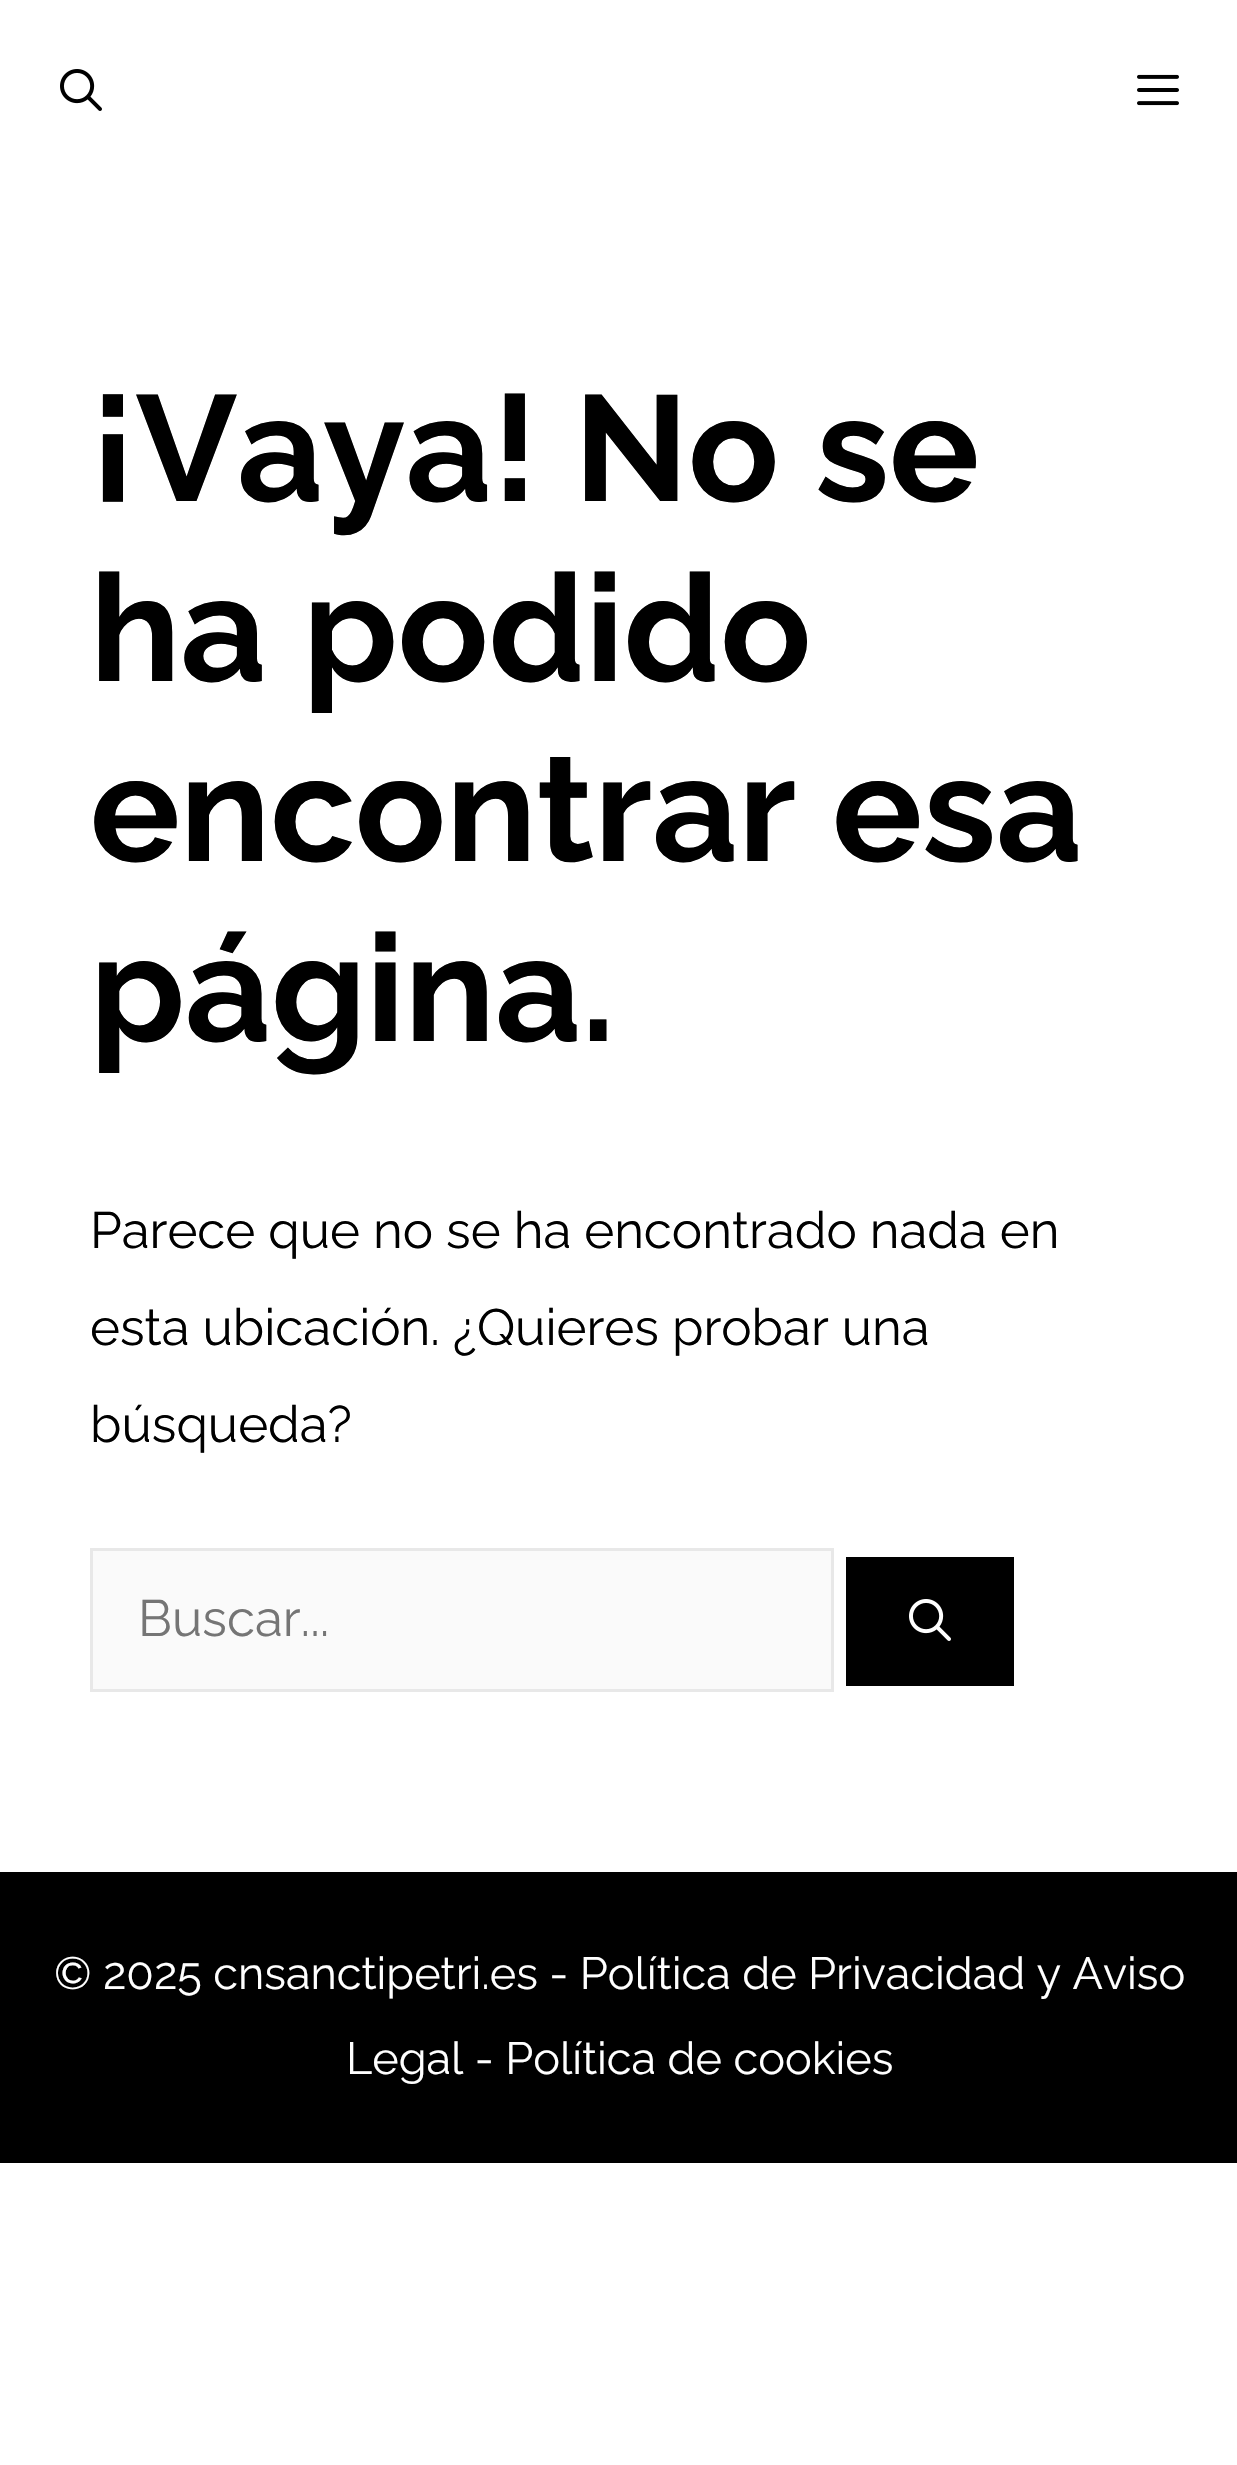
void draw(SkCanvas* canvas) {
	SkPaint fill;
	fill.setAntiAlias(true);
	auto makeFont = [&](const char* family, int weight, float size, bool italic = false) {
		SkFontStyle style(weight, SkFontStyle::kNormal_Width,
			italic ? SkFontStyle::kItalic_Slant : SkFontStyle::kUpright_Slant);
		SkFont result(fontMgr->matchFamilyStyle(family, style), size);
		result.setSubpixel(true);
		return result;
	};
	auto text = [&](const char* s, float x, float y, const SkFont& font) {
		canvas->drawString(s, x, y, font, fill);
	};
	auto box = [&](float l, float t, float r, float b) {
		canvas->drawRect(SkRect::MakeLTRB(l, t, r, b), fill);
	};
	auto picture = [&](const char* path, float l, float t, float r, float b) {
		auto image = SkImages::DeferredFromEncodedData(SkData::MakeFromFileName(path));
		canvas->drawImageRect(image, SkRect::MakeLTRB(l, t, r, b), SkSamplingOptions());
	};
	canvas->clear(0xFFFFFFFF);
	picture("image0.png", 60, 69, 102, 111);
	picture("image1.png", 1137, 74, 1179, 106);
	fill.setColor(0xFFFAFAFA);
	canvas->drawRect(SkRect::MakeLTRB(91.5f, 1549.5f, 832.5f, 1690.5f), fill);
	fill.setStyle(SkPaint::kStroke_Style);
	fill.setStrokeWidth(3);
	fill.setColor(0xFFE8E8E8);
	canvas->drawRect(SkRect::MakeLTRB(91.5f, 1549.5f, 832.5f, 1690.5f), fill);
	fill.setStyle(SkPaint::kFill_Style);
	fill.setColor(0xFF000000);
	box(846, 1557, 1014, 1686);
	picture("image2.png", 909, 1599, 951, 1641);
	box(0, 1872, 1237, 2163);
	auto font1 = makeFont("Raleway", 700, 150);
	text("¡Vaya! No se", 90, 501, font1);
	text("ha podido", 90, 681, font1);
	text("encontrar esa", 90, 861, font1);
	text("página.", 90, 1041, font1);
	auto font2 = makeFont("Raleway", 400, 51);
	text("Parece que no se ha encontrado nada en", 90, 1248, font2);
	text("esta ubicación. ¿Quieres probar una", 90, 1345, font2);
	text("búsqueda?", 90, 1442, font2);
	fill.setColor(0xFF757575);
	text("Buscar...", 138, 1636, font2);
	auto font3 = makeFont("Raleway", 400, 45);
	fill.setColor(0xFFFFFFFF);
	text("© 2025 cnsanctipetri.es - Política de Privacidad y Aviso", 54, 1989, font3);
	text("Legal - Política de cookies", 346, 2074, font3);
}
